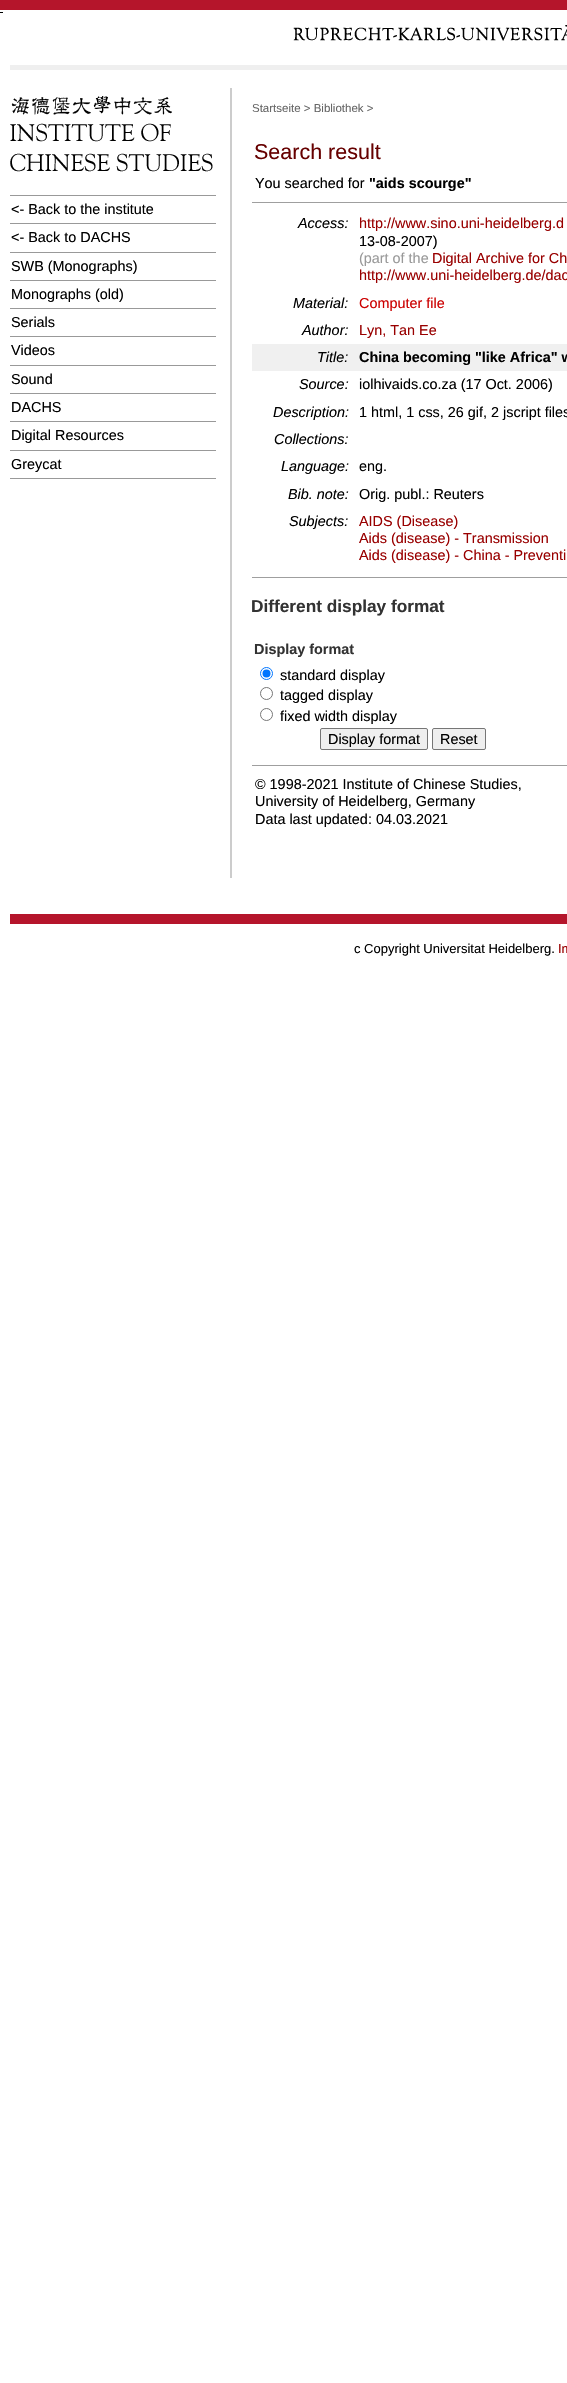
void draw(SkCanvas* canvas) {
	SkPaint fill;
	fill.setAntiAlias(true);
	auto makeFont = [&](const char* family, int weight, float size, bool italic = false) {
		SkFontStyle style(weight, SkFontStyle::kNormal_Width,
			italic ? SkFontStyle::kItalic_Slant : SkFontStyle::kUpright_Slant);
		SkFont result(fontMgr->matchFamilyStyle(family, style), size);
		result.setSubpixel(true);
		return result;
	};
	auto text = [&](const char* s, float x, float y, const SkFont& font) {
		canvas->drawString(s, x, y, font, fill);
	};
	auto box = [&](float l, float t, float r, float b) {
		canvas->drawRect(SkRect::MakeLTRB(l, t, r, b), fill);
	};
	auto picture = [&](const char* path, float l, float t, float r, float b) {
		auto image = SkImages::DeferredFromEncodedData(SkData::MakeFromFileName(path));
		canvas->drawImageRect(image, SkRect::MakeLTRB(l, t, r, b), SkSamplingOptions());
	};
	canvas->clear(0xFFFFFFFF);
	fill.setColor(0xFFB5152B);
	box(0, 0, 567, 10);
	fill.setColor(0xFF000000);
	box(0, 12, 3, 13);
	picture("image0.png", 293, 25, 567, 41);
	fill.setColor(0xFFEFEFEF);
	box(10, 65, 567, 70);
	picture("image1.png", 10, 96, 213, 172);
	fill.setColor(0xFF999999);
	box(10, 195, 216, 196);
	box(10, 223, 216, 224);
	box(10, 252, 216, 253);
	box(10, 280, 216, 281);
	box(10, 308, 216, 309);
	box(10, 336, 216, 337);
	box(10, 365, 216, 366);
	box(10, 393, 216, 394);
	box(10, 421, 216, 422);
	box(10, 450, 216, 451);
	box(10, 478, 216, 479);
	fill.setColor(0xFFCCCCCC);
	box(230, 88, 232, 878);
	fill.setColor(0xFF9F9F9F);
	box(252, 202, 567, 203);
	fill.setColor(0xFFF0F0F0);
	box(252, 344, 567, 371);
	fill.setColor(0xFF9F9F9F);
	box(252, 577, 567, 578);
	fill.setStyle(SkPaint::kStroke_Style);
	fill.setStrokeWidth(1);
	fill.setColor(0xFF0075FF);
	canvas->drawCircle(266.5f, 673.5f, 6, fill);
	fill.setStyle(SkPaint::kFill_Style);
	canvas->drawCircle(266.5f, 673.5f, 4, fill);
	fill.setStyle(SkPaint::kStroke_Style);
	fill.setColor(0xFF767676);
	canvas->drawCircle(266.5f, 693.5f, 6, fill);
	canvas->drawCircle(266.5f, 714.5f, 6, fill);
	fill.setStyle(SkPaint::kFill_Style);
	fill.setColor(0xFFEFEFEF);
	canvas->drawRoundRect(SkRect::MakeLTRB(320.5f, 728.5f, 427.5f, 749.5f), 1.5f, 1.5f, fill);
	fill.setStyle(SkPaint::kStroke_Style);
	fill.setColor(0xFF767676);
	canvas->drawRoundRect(SkRect::MakeLTRB(320.5f, 728.5f, 427.5f, 749.5f), 1.5f, 1.5f, fill);
	fill.setStyle(SkPaint::kFill_Style);
	fill.setColor(0xFFEFEFEF);
	canvas->drawRoundRect(SkRect::MakeLTRB(432.5f, 728.5f, 485.5f, 749.5f), 1.5f, 1.5f, fill);
	fill.setStyle(SkPaint::kStroke_Style);
	fill.setColor(0xFF767676);
	canvas->drawRoundRect(SkRect::MakeLTRB(432.5f, 728.5f, 485.5f, 749.5f), 1.5f, 1.5f, fill);
	fill.setStyle(SkPaint::kFill_Style);
	fill.setColor(0xFF9F9F9F);
	box(252, 765, 567, 766);
	fill.setColor(0xFFB5152B);
	box(10, 914, 567, 924);
	auto font1 = makeFont("Liberation Sans", 400, 14.4f);
	fill.setColor(0xFF000000);
	text("<- Back to the institute", 11, 214, font1);
	text("<- Back to DACHS", 11, 242, font1);
	text("SWB (Monographs)", 11, 271, font1);
	text("Monographs (old)", 11, 299, font1);
	text("Serials", 11, 327, font1);
	text("Videos", 11, 355, font1);
	text("Sound", 11, 384, font1);
	text("DACHS", 11, 412, font1);
	text("Digital Resources", 11, 440, font1);
	text("Greycat", 11, 469, font1);
	auto font2 = makeFont("Liberation Sans", 400, 11.5f);
	fill.setColor(0xFF666666);
	text("Startseite > Bibliothek >", 252, 112, font2);
	auto font3 = makeFont("Liberation Sans", 400, 21.5f);
	fill.setColor(0xFF660000);
	text("Search result", 254, 159, font3);
	fill.setColor(0xFF000000);
	text("You searched for", 255, 188, font1);
	auto font4 = makeFont("Liberation Sans", 700, 14.4f);
	text("\"aids scourge\"", 369, 188, font4);
	auto font5 = makeFont("Liberation Sans", 400, 14.4f, true);
	text("Access:", 298, 228, font5);
	fill.setColor(0xFF990000);
	text("http://www.sino.uni-heidelberg.d", 359, 228, font1);
	fill.setColor(0xFF000000);
	text("13-08-2007)", 359, 246, font1);
	fill.setColor(0xFF999999);
	text("(part of the", 359, 263, font1);
	fill.setColor(0xFF990000);
	text("Digital Archive for Ch", 432, 263, font1);
	text("http://www.uni-heidelberg.de/dac", 359, 280, font1);
	fill.setColor(0xFF000000);
	text("Material:", 293, 308, font5);
	fill.setColor(0xFFCC0000);
	text("Computer file", 359, 308, font1);
	fill.setColor(0xFF000000);
	text("Author:", 302, 335, font5);
	fill.setColor(0xFF990000);
	text("Lyn, Tan Ee", 359, 335, font1);
	fill.setColor(0xFF000000);
	text("Title:", 317, 362, font5);
	text("China becoming \"like Africa\" w", 359, 362, font4);
	text("Source:", 299, 389, font5);
	text("iolhivaids.co.za (17 Oct. 2006)", 359, 389, font1);
	text("Description:", 273, 417, font5);
	text("1 html, 1 css, 26 gif, 2 jscript files", 359, 417, font1);
	text("Collections:", 274, 444, font5);
	text("Language:", 281, 471, font5);
	text("eng.", 359, 471, font1);
	text("Bib. note:", 288, 499, font5);
	text("Orig. publ.: Reuters", 359, 499, font1);
	text("Subjects:", 289, 526, font5);
	fill.setColor(0xFF990000);
	text("AIDS (Disease)", 359, 526, font1);
	text("Aids (disease) - Transmission", 359, 543, font1);
	text("Aids (disease) - China - Preventi", 359, 560, font1);
	auto font6 = makeFont("Liberation Sans", 700, 17.25f);
	fill.setColor(0xFF333333);
	text("Different display format", 251, 612, font6);
	text("Display format", 254, 654, font4);
	fill.setColor(0xFF000000);
	text("standard display", 280, 680, font1);
	text("tagged display", 280, 700, font1);
	text("fixed width display", 280, 721, font1);
	text("Display format", 328, 744, font1);
	text("Reset", 440, 744, font1);
	text("© 1998-2021 Institute of Chinese Studies,", 255, 789, font1);
	text("University of Heidelberg, Germany", 255, 806, font1);
	text("Data last updated: 04.03.2021", 255, 824, font1);
	auto font7 = makeFont("Liberation Sans", 400, 13);
	text("c Copyright Universitat Heidelberg.", 354, 953, font7);
	fill.setColor(0xFF990000);
	text("Im", 558, 953, font7);
}
